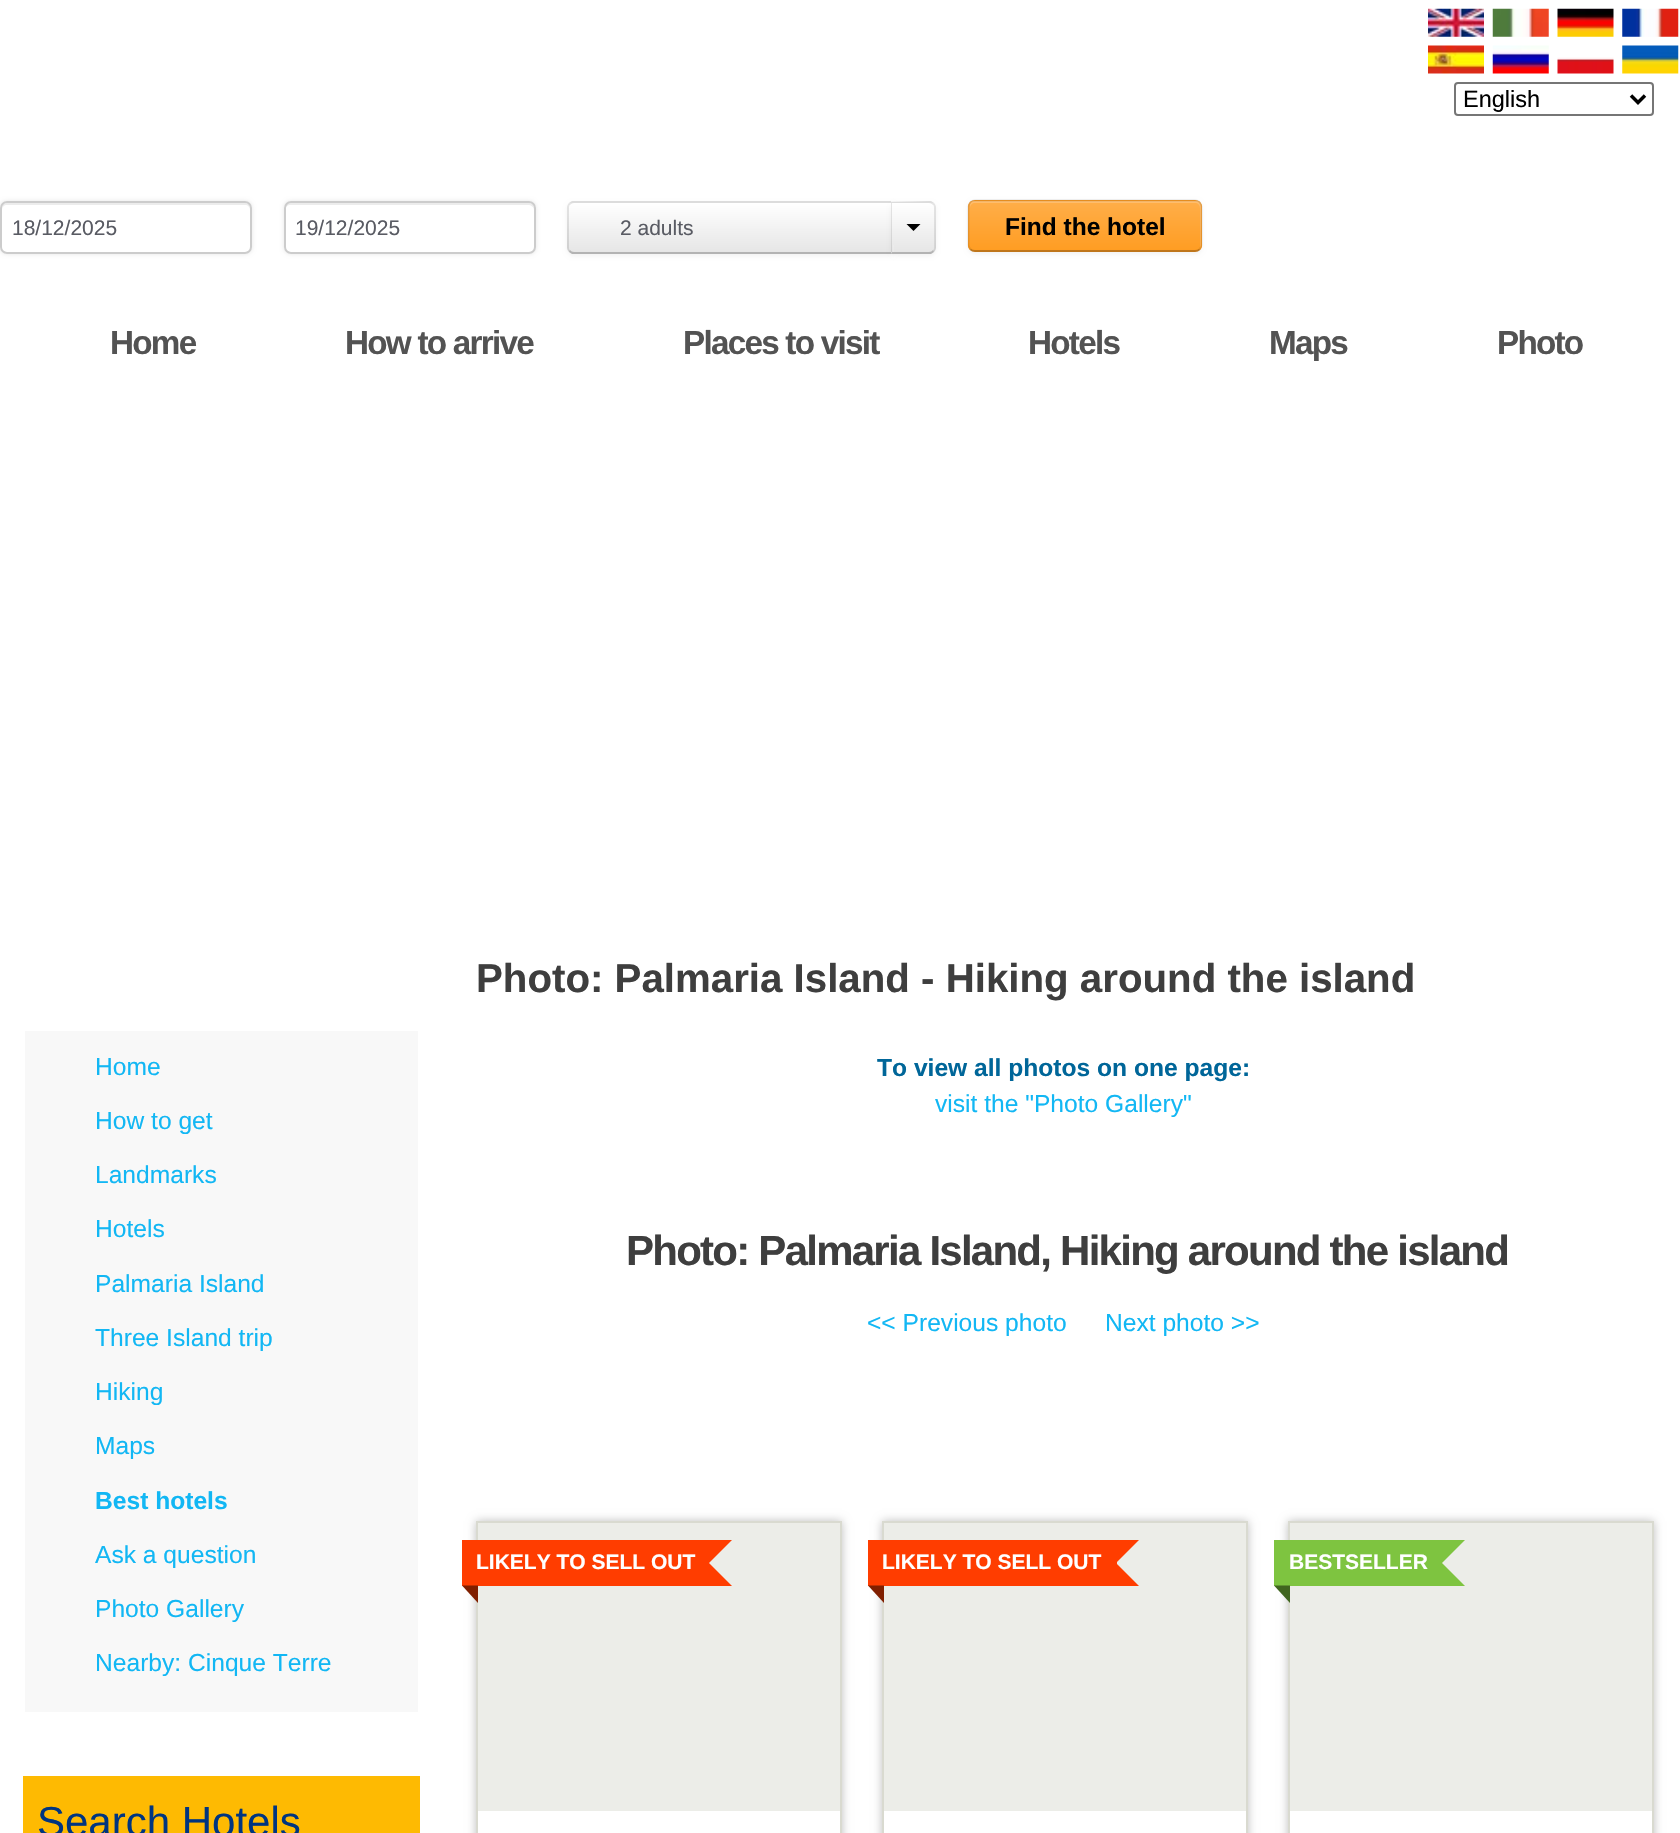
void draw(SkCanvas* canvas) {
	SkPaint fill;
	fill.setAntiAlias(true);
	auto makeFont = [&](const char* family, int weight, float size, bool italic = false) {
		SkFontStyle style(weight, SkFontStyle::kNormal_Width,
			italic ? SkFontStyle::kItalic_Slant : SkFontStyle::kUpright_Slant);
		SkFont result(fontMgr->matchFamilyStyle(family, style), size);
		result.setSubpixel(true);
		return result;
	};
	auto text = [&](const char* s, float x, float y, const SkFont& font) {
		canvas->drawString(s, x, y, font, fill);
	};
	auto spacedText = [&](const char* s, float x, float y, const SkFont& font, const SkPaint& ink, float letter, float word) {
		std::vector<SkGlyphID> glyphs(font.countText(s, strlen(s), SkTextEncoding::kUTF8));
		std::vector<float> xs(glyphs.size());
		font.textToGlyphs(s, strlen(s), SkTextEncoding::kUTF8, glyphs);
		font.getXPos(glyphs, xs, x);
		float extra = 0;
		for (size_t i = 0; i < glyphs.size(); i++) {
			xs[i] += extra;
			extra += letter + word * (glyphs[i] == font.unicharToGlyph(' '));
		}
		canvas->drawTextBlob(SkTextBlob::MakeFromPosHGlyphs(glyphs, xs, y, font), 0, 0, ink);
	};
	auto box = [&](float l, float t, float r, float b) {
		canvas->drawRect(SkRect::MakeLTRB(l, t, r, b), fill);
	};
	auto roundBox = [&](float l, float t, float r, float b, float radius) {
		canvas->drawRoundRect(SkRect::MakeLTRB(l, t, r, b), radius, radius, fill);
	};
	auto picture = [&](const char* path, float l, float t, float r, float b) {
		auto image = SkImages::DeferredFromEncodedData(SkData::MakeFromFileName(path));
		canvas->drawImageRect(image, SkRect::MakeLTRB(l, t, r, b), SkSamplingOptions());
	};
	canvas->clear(0xFFFFFFFF);
	picture("image0.png", 1428, 8, 1484, 37);
	picture("image1.png", 1492, 8, 1549, 37);
	picture("image2.png", 1557, 8, 1614, 37);
	picture("image3.png", 1622, 8, 1679, 37);
	picture("image4.png", 1428, 45, 1484, 74);
	picture("image5.png", 1492, 45, 1549, 74);
	picture("image6.png", 1557, 57, 1614, 74);
	picture("image7.png", 1622, 45, 1679, 74);
	fill.setStyle(SkPaint::kStroke_Style);
	fill.setStrokeWidth(2);
	fill.setColor(0xFF767676);
	canvas->drawRoundRect(SkRect::MakeLTRB(1455, 83, 1653, 115), 3, 3, fill);
	fill.setStrokeWidth(3.5f);
	fill.setColor(0xFF000000);
	canvas->drawPath(SkPathBuilder().moveTo(1631, 95.5f).lineTo(1638, 102.5f).lineTo(1645, 95.5f).detach(), fill);
	fill.setStyle(SkPaint::kFill_Style);
	fill.setColor(0x1A000000);
	fill.setMaskFilter(SkMaskFilter::MakeBlur(kNormal_SkBlurStyle, 2));
	canvas->drawRoundRect(SkRect::MakeLTRB(0, 201, 252, 254), 7, 7, fill);
	fill.setMaskFilter(nullptr);
	fill.setColor(0xFFFFFFFF);
	roundBox(0, 201, 252, 254, 7);
	fill.setColor(0xFFECECEC);
	canvas->drawPath(SkPathBuilder().moveTo(7, 205).lineTo(245, 205).cubicTo(248, 205, 250, 207, 250, 210).cubicTo(250, 207, 250, 204, 246, 203).lineTo(6, 203).cubicTo(2, 204, 2, 207, 2, 210).cubicTo(2, 207, 4, 205, 7, 205).close().detach(), fill);
	fill.setStyle(SkPaint::kStroke_Style);
	fill.setStrokeWidth(2);
	fill.setColor(0xFFCCCCCC);
	canvas->drawRoundRect(SkRect::MakeLTRB(1, 202, 251, 253), 6, 6, fill);
	fill.setStyle(SkPaint::kFill_Style);
	fill.setColor(0x1A000000);
	fill.setMaskFilter(SkMaskFilter::MakeBlur(kNormal_SkBlurStyle, 2));
	canvas->drawRoundRect(SkRect::MakeLTRB(284, 201, 536, 254), 7, 7, fill);
	fill.setMaskFilter(nullptr);
	fill.setColor(0xFFFFFFFF);
	roundBox(284, 201, 536, 254, 7);
	fill.setColor(0xFFECECEC);
	canvas->drawPath(SkPathBuilder().moveTo(290, 205).lineTo(528, 205).cubicTo(531, 205, 534, 207, 534, 210).cubicTo(534, 207, 534, 204, 530, 203).lineTo(289, 203).cubicTo(285, 204, 285, 207, 285, 210).cubicTo(285, 207, 288, 205, 290, 205).close().detach(), fill);
	fill.setStyle(SkPaint::kStroke_Style);
	fill.setColor(0xFFCCCCCC);
	canvas->drawRoundRect(SkRect::MakeLTRB(285, 202, 535, 253), 6, 6, fill);
	fill.setStyle(SkPaint::kFill_Style);
	fill.setColor(0x0D000000);
	fill.setMaskFilter(SkMaskFilter::MakeBlur(kNormal_SkBlurStyle, 2));
	canvas->drawRoundRect(SkRect::MakeLTRB(567, 203, 896, 256), 7, 7, fill);
	fill.setMaskFilter(nullptr);
	fill.setColor(0xFFF5F5F5);
	canvas->drawPath(SkPathBuilder().moveTo(574, 201).lineTo(896, 201).lineTo(896, 254).lineTo(574, 254).cubicTo(570, 254, 567, 251, 567, 247).lineTo(567, 208).cubicTo(567, 204, 570, 201, 574, 201).close().detach(), fill);
	canvas->save();
	canvas->clipPath(SkPathBuilder().moveTo(574, 201).lineTo(896, 201).lineTo(896, 254).lineTo(574, 254).cubicTo(570, 254, 567, 251, 567, 247).lineTo(567, 208).cubicTo(567, 204, 570, 201, 574, 201).close().detach(), true);
	{
		const SkColor colors[] = {0xFFFFFFFF, 0xFFE6E6E6};
		const float stops[] = {0, 1};
		const SkPoint ends[] = {{732, 203}, {732, 252}};
		fill.setShader(SkGradientShader::MakeLinear(ends, colors, stops, 2, SkTileMode::kClamp));
		fill.setAlpha(255);
	}
	box(567, 203, 891, 252);
	canvas->restore();
	fill.setShader(nullptr);
	fill.setColor(0x1A000000);
	canvas->drawPath(SkPathBuilder().moveTo(574, 203).cubicTo(572, 203, 571, 204, 570, 205).lineTo(569, 203).lineTo(572, 201).lineTo(896, 201).lineTo(894, 203).close().detach(), fill);
	fill.setColor(0xFFB3B3B3);
	canvas->drawPath(SkPathBuilder().moveTo(896, 254).lineTo(572, 254).lineTo(569, 252).lineTo(570, 250).cubicTo(571, 251, 572, 252, 574, 252).lineTo(894, 252).close().detach(), fill);
	fill.setColor(0x1A000000);
	canvas->drawPath(SkPathBuilder().moveTo(567, 208).lineTo(567, 247).cubicTo(567, 249, 568, 251, 569, 252).lineTo(570, 250).cubicTo(569, 250, 569, 248, 569, 247).lineTo(569, 208).cubicTo(569, 207, 569, 205, 570, 205).lineTo(569, 203).cubicTo(568, 204, 567, 206, 567, 208).close().detach(), fill);
	fill.setColor(0x0D000000);
	fill.setMaskFilter(SkMaskFilter::MakeBlur(kNormal_SkBlurStyle, 2));
	canvas->drawRoundRect(SkRect::MakeLTRB(891, 203, 936, 256), 7, 7, fill);
	fill.setMaskFilter(nullptr);
	fill.setColor(0xFFF5F5F5);
	canvas->drawPath(SkPathBuilder().moveTo(891, 201).lineTo(929, 201).cubicTo(933, 201, 936, 204, 936, 208).lineTo(936, 247).cubicTo(936, 251, 933, 254, 929, 254).lineTo(891, 254).close().detach(), fill);
	canvas->save();
	canvas->clipPath(SkPathBuilder().moveTo(891, 201).lineTo(929, 201).cubicTo(933, 201, 936, 204, 936, 208).lineTo(936, 247).cubicTo(936, 251, 933, 254, 929, 254).lineTo(891, 254).close().detach(), true);
	{
		const SkColor colors[] = {0xFFFFFFFF, 0xFFE6E6E6};
		const float stops[] = {0, 1};
		const SkPoint ends[] = {{914, 203}, {914, 252}};
		fill.setShader(SkGradientShader::MakeLinear(ends, colors, stops, 2, SkTileMode::kClamp));
		fill.setAlpha(255);
	}
	box(891, 203, 936, 252);
	canvas->restore();
	fill.setShader(nullptr);
	fill.setColor(0x33FFFFFF);
	canvas->drawPath(SkPathBuilder().moveTo(893, 203).lineTo(893, 205).lineTo(929, 205).cubicTo(932, 205, 934, 207, 934, 210).lineTo(934, 248).lineTo(934, 251).cubicTo(934, 250, 935, 248, 935, 247).lineTo(935, 208).cubicTo(935, 205, 933, 203, 930, 203).close().detach(), fill);
	fill.setColor(0x1FFFFFFF);
	box(893, 245, 894, 252);
	fill.setColor(0x1A000000);
	canvas->drawPath(SkPathBuilder().moveTo(891, 202).lineTo(931, 201).lineTo(934, 203).lineTo(933, 205).cubicTo(932, 204, 931, 203, 929, 203).lineTo(892, 203).close().detach(), fill);
	canvas->drawPath(SkPathBuilder().moveTo(934, 203).cubicTo(935, 204, 936, 206, 936, 208).lineTo(936, 247).cubicTo(936, 249, 935, 251, 934, 252).lineTo(933, 250).cubicTo(934, 250, 934, 248, 934, 247).lineTo(934, 208).cubicTo(934, 207, 934, 205, 933, 205).close().detach(), fill);
	fill.setColor(0xFFB3B3B3);
	canvas->drawPath(SkPathBuilder().moveTo(891, 254).lineTo(892, 252).lineTo(929, 252).cubicTo(931, 252, 932, 251, 933, 250).lineTo(934, 252).lineTo(931, 254).close().detach(), fill);
	fill.setColor(0x1A000000);
	canvas->drawPath(SkPathBuilder().moveTo(892, 203).lineTo(892, 252).lineTo(891, 254).lineTo(891, 202).close().detach(), fill);
	fill.setColor(0xFF000000);
	canvas->drawPath(SkPathBuilder().moveTo(906.5f, 224).lineTo(920.5f, 224).lineTo(913.5f, 231).close().detach(), fill);
	fill.setColor(0x0D000000);
	fill.setMaskFilter(SkMaskFilter::MakeBlur(kNormal_SkBlurStyle, 2));
	canvas->drawRoundRect(SkRect::MakeLTRB(968, 201, 1202, 254), 7, 7, fill);
	fill.setMaskFilter(nullptr);
	fill.setColor(0xFFFF9D23);
	roundBox(968, 200, 1202, 252, 7);
	canvas->save();
	canvas->clipPath(SkPathBuilder().moveTo(975, 200).lineTo(1195, 200).cubicTo(1199, 200, 1202, 203, 1202, 207).lineTo(1202, 245).cubicTo(1202, 249, 1199, 252, 1195, 252).lineTo(975, 252).cubicTo(971, 252, 968, 249, 968, 245).lineTo(968, 207).cubicTo(968, 203, 971, 200, 975, 200).close().detach(), true);
	{
		const SkColor colors[] = {0xFFFFAE49, 0xFFFF9D23};
		const float stops[] = {0, 1};
		const SkPoint ends[] = {{1085, 201}, {1085, 250}};
		fill.setShader(SkGradientShader::MakeLinear(ends, colors, stops, 2, SkTileMode::kClamp));
		fill.setAlpha(255);
	}
	box(968, 201, 1202, 250);
	canvas->restore();
	fill.setShader(nullptr);
	fill.setColor(0x33FFFFFF);
	canvas->drawPath(SkPathBuilder().moveTo(975, 203).lineTo(1195, 203).cubicTo(1198, 203, 1200, 205, 1200, 208).lineTo(1200, 248).cubicTo(1201, 247, 1201, 246, 1201, 245).lineTo(1201, 206).cubicTo(1201, 203, 1199, 201, 1196, 201).lineTo(975, 201).cubicTo(972, 201, 970, 203, 970, 206).lineTo(970, 208).cubicTo(970, 205, 972, 203, 975, 203).close().detach(), fill);
	fill.setStyle(SkPaint::kStroke_Style);
	fill.setStrokeWidth(1.8f);
	fill.setColor(0x40000000);
	canvas->drawPath(SkPathBuilder().moveTo(1199.5f, 249.5f).cubicTo(1198.5f, 250.5f, 1197, 251, 1195, 251).lineTo(975, 251).cubicTo(973, 251, 971.5f, 250.5f, 970.5f, 249.5f).detach(), fill);
	fill.setColor(0x1A000000);
	canvas->drawPath(SkPathBuilder().moveTo(970.5f, 249.5f).cubicTo(969.5f, 248, 968.5f, 246.5f, 968.5f, 245).lineTo(968.5f, 206.5f).cubicTo(968.5f, 205, 969.5f, 203.5f, 970.5f, 202).cubicTo(971.5f, 201, 973, 200.5f, 975, 200.5f).lineTo(1195, 200.5f).cubicTo(1197, 200.5f, 1198.5f, 201, 1199.5f, 202).cubicTo(1200.5f, 203.5f, 1201.5f, 205, 1201.5f, 206.5f).lineTo(1201.5f, 245).cubicTo(1201.5f, 246.5f, 1200.5f, 248, 1199.5f, 249.5f).detach(), fill);
	fill.setStyle(SkPaint::kFill_Style);
	fill.setColor(0xFFF8F8F8);
	box(25, 1031, 418, 1712);
	fill.setColor(0xFFFEBA02);
	box(23, 1776, 420, 1833);
	fill.setColor(0x40000000);
	fill.setMaskFilter(SkMaskFilter::MakeBlur(kNormal_SkBlurStyle, 4.5f));
	canvas->drawRect(SkRect::MakeLTRB(476, 1521, 842, 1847), fill);
	fill.setMaskFilter(nullptr);
	fill.setColor(0xFFFFFFFF);
	box(478, 1811, 840, 1833);
	fill.setStyle(SkPaint::kStroke_Style);
	fill.setStrokeWidth(2);
	fill.setColor(0xFFD9DAD0);
	canvas->drawRect(SkRect::MakeLTRB(477, 1522, 841, 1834), fill);
	fill.setStyle(SkPaint::kFill_Style);
	fill.setColor(0xFFECEDE8);
	box(478, 1523, 840, 1811);
	fill.setColor(0xFFFF3D00);
	box(462, 1540, 709, 1586);
	canvas->drawPath(SkPathBuilder().moveTo(686, 1540).lineTo(732, 1540).lineTo(709, 1563).close().moveTo(732, 1586).lineTo(686, 1586).lineTo(709, 1563).close().detach(), fill);
	fill.setColor(0xFF801F00);
	canvas->drawPath(SkPathBuilder().moveTo(462, 1585.5f).lineTo(478, 1585.5f).lineTo(478, 1603).close().detach(), fill);
	fill.setColor(0x40000000);
	fill.setMaskFilter(SkMaskFilter::MakeBlur(kNormal_SkBlurStyle, 4.5f));
	canvas->drawRect(SkRect::MakeLTRB(882, 1521, 1248, 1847), fill);
	fill.setMaskFilter(nullptr);
	fill.setColor(0xFFFFFFFF);
	box(884, 1811, 1246, 1833);
	fill.setStyle(SkPaint::kStroke_Style);
	fill.setColor(0xFFD9DAD0);
	canvas->drawRect(SkRect::MakeLTRB(883, 1522, 1247, 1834), fill);
	fill.setStyle(SkPaint::kFill_Style);
	fill.setColor(0xFFECEDE8);
	box(884, 1523, 1246, 1811);
	fill.setColor(0xFFFF3D00);
	box(868, 1540, 1117, 1586);
	canvas->drawPath(SkPathBuilder().moveTo(1094, 1540).lineTo(1139, 1540).lineTo(1116, 1563).close().moveTo(1139, 1586).lineTo(1094, 1586).lineTo(1116, 1563).close().detach(), fill);
	fill.setColor(0xFF801F00);
	canvas->drawPath(SkPathBuilder().moveTo(868, 1585.5f).lineTo(884, 1585.5f).lineTo(884, 1603).close().detach(), fill);
	fill.setColor(0x40000000);
	fill.setMaskFilter(SkMaskFilter::MakeBlur(kNormal_SkBlurStyle, 4.5f));
	canvas->drawRect(SkRect::MakeLTRB(1288, 1521, 1654, 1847), fill);
	fill.setMaskFilter(nullptr);
	fill.setColor(0xFFFFFFFF);
	box(1290, 1811, 1652, 1833);
	fill.setStyle(SkPaint::kStroke_Style);
	fill.setColor(0xFFD9DAD0);
	canvas->drawRect(SkRect::MakeLTRB(1289, 1522, 1653, 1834), fill);
	fill.setStyle(SkPaint::kFill_Style);
	fill.setColor(0xFFECEDE8);
	box(1290, 1523, 1652, 1811);
	fill.setColor(0xFF7EC440);
	box(1274, 1540, 1442, 1586);
	canvas->drawPath(SkPathBuilder().moveTo(1419, 1540).lineTo(1465, 1540).lineTo(1442, 1563).close().moveTo(1465, 1586).lineTo(1419, 1586).lineTo(1442, 1563).close().detach(), fill);
	fill.setColor(0xFF40651F);
	canvas->drawPath(SkPathBuilder().moveTo(1274, 1585.5f).lineTo(1290, 1585.5f).lineTo(1290, 1603).close().detach(), fill);
	auto font1 = makeFont("Liberation Sans", 400, 23.5f);
	fill.setColor(0xFF000000);
	text("English", 1463, 107, font1);
	auto font2 = makeFont("Liberation Sans", 400, 21);
	fill.setColor(0xFF595B63);
	text("18/12/2025", 12, 235, font2);
	text("19/12/2025", 295, 235, font2);
	text("2 adults", 620, 235, font2);
	auto font3 = makeFont("Liberation Sans", 700, 24.5f);
	fill.setColor(0xFF000000);
	text("Find the hotel", 1005, 235, font3);
	auto font4 = makeFont("Liberation Sans", 700, 33.25f);
	fill.setColor(0xFF535353);
	spacedText("Home", 110, 354, font4, fill, -1.75f, 0);
	spacedText("How to arrive", 345, 354, font4, fill, -1.75f, 0);
	spacedText("Places to visit", 683, 354, font4, fill, -1.75f, 0);
	spacedText("Hotels", 1028, 354, font4, fill, -1.75f, 0);
	spacedText("Maps", 1269, 354, font4, fill, -1.75f, 0);
	spacedText("Photo", 1497, 354, font4, fill, -1.75f, 0);
	auto font5 = makeFont("Liberation Sans", 400, 24.6f);
	fill.setColor(0xFF12B7F4);
	text("Home", 95, 1075, font5);
	text("How to get", 95, 1129, font5);
	text("Landmarks", 95, 1183, font5);
	text("Hotels", 95, 1237, font5);
	text("Palmaria Island", 95, 1292, font5);
	text("Three Island trip", 95, 1346, font5);
	text("Hiking", 95, 1400, font5);
	text("Maps", 95, 1454, font5);
	auto font6 = makeFont("Liberation Sans", 700, 24.6f);
	text("Best hotels", 95, 1509, font6);
	text("Ask a question", 95, 1563, font5);
	text("Photo Gallery", 95, 1617, font5);
	text("Nearby: Cinque Terre", 95, 1671, font5);
	auto font7 = makeFont("Liberation Sans", 400, 42);
	fill.setColor(0xFF003580);
	text("Search Hotels", 37, 1836, font7);
	auto font8 = makeFont("Liberation Sans", 700, 40.25f);
	fill.setColor(0xFF3E3E3E);
	text("Photo: Palmaria Island - Hiking around the island", 476, 992, font8);
	fill.setColor(0xFF006699);
	text("To view all photos on one page:", 877, 1076, font6);
	fill.setColor(0xFF12B7F4);
	text("visit the \"Photo Gallery\"", 935, 1112, font5);
	auto font9 = makeFont("Liberation Sans", 700, 42);
	fill.setColor(0xFF3E3E3E);
	spacedText("Photo: Palmaria Island, Hiking around the island", 626, 1265, font9, fill, -1.75f, 0);
	fill.setColor(0xFF12B7F4);
	text("<< Previous photo", 867, 1331, font5);
	text("Next photo >>", 1105, 1331, font5);
	auto font10 = makeFont("Liberation Sans", 700, 21);
	fill.setColor(0xFFFFFFFF);
	text("LIKELY TO SELL OUT", 476, 1569, font10);
	text("LIKELY TO SELL OUT", 882, 1569, font10);
	text("BESTSELLER", 1289, 1569, font10);
}
